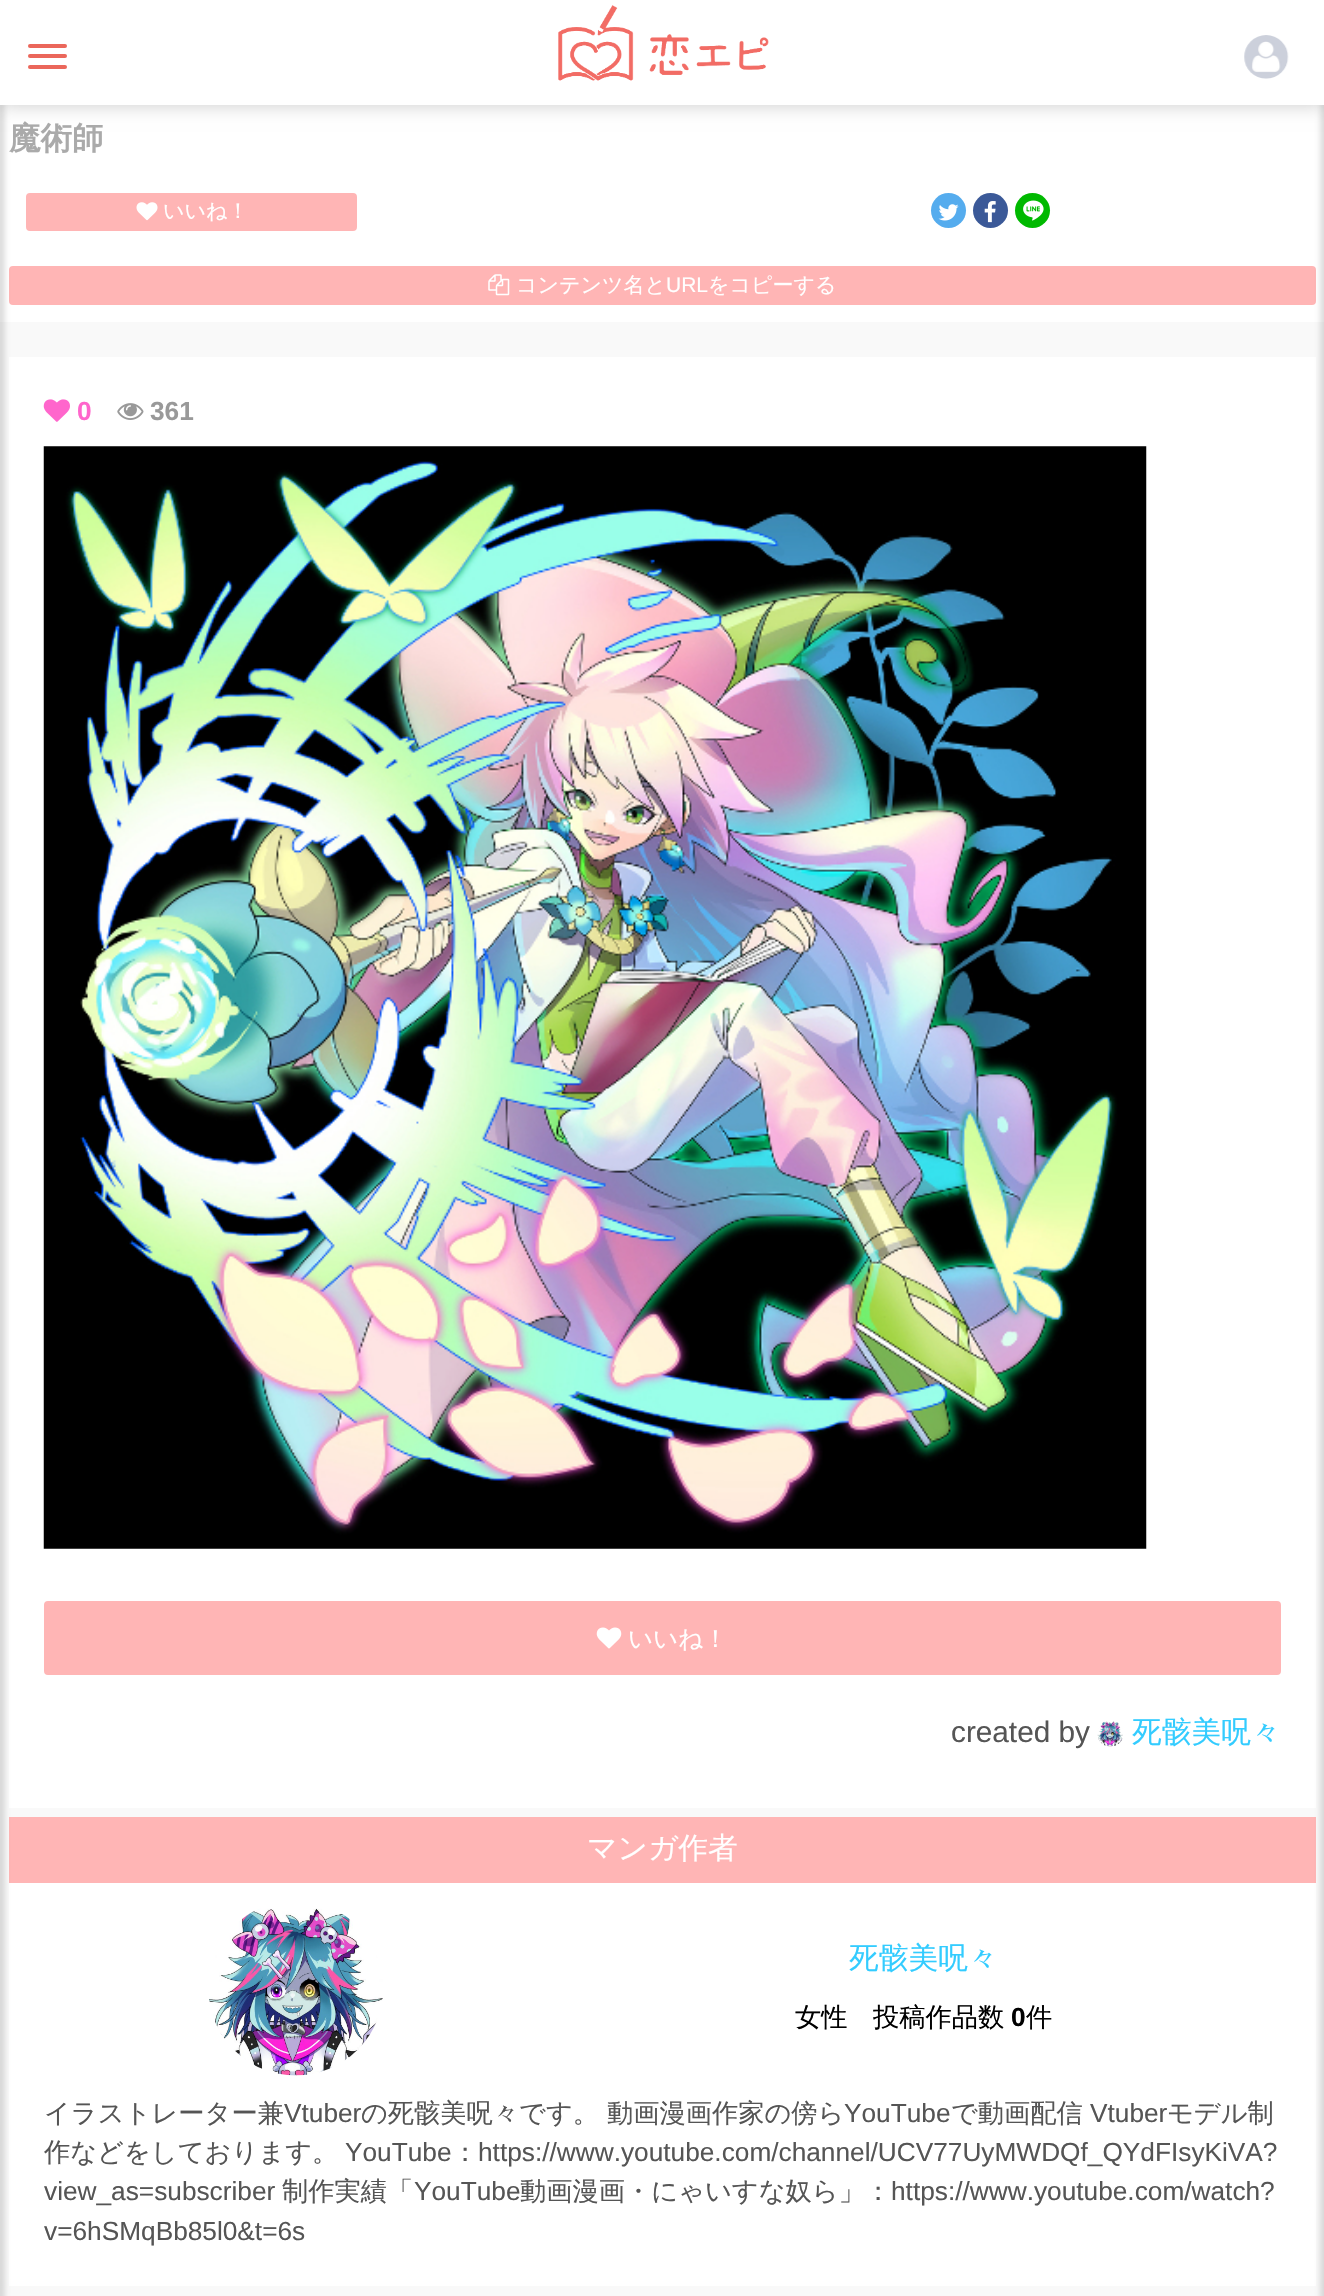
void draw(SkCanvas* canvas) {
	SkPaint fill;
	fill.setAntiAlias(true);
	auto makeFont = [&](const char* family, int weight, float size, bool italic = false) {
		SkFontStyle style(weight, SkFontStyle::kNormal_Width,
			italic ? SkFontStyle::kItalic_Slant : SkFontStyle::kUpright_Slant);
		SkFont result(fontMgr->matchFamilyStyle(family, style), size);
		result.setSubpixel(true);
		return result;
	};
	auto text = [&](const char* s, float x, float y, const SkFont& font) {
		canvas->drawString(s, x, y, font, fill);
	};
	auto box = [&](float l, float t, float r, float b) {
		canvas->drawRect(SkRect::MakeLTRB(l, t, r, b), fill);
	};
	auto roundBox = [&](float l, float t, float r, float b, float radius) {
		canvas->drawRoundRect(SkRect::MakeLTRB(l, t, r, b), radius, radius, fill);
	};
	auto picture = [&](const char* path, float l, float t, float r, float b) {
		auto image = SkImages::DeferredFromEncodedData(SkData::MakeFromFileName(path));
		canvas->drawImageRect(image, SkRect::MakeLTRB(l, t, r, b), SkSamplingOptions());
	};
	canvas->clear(0xFFF9F9F9);
	fill.setColor(0xFFFFFFFF);
	box(0, 105, 1324, 322);
	fill.setColor(0xFFFFB5B5);
	canvas->drawRoundRect(SkRect::MakeLTRB(10, 267, 1315, 304), 3, 3, fill);
	fill.setStyle(SkPaint::kStroke_Style);
	fill.setStrokeWidth(2);
	canvas->drawRoundRect(SkRect::MakeLTRB(10, 267, 1315, 304), 3, 3, fill);
	fill.setStyle(SkPaint::kFill_Style);
	fill.setColor(0xFFFFFFFF);
	box(9, 357, 1316, 1808);
	fill.setColor(0xFFFFB5B5);
	box(9, 1817, 1316, 1883);
	fill.setColor(0xFFFFFFFF);
	box(9, 1883, 1316, 2286);
	fill.setColor(0x21000000);
	fill.setMaskFilter(SkMaskFilter::MakeBlur(kNormal_SkBlurStyle, 2.5f));
	canvas->drawRect(SkRect::MakeLTRB(-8, 5, 5, 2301), fill);
	fill.setMaskFilter(nullptr);
	fill.setColor(0x33000000);
	fill.setMaskFilter(SkMaskFilter::MakeBlur(kNormal_SkBlurStyle, 9));
	canvas->drawRect(SkRect::MakeLTRB(0, 0, 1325, 105), fill);
	fill.setMaskFilter(nullptr);
	fill.setColor(0x21000000);
	fill.setMaskFilter(SkMaskFilter::MakeBlur(kNormal_SkBlurStyle, 2.5f));
	canvas->drawRect(SkRect::MakeLTRB(1320, 5, 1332, 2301), fill);
	fill.setMaskFilter(nullptr);
	fill.setColor(0xFFFFFFFF);
	box(0, 0, 1324, 105);
	fill.setColor(0xFFEB675B);
	roundBox(28, 44, 67, 48, 2);
	roundBox(28, 54, 67, 58, 2);
	roundBox(28, 65, 67, 69, 2);
	picture("image0.png", 558, 5, 769, 81);
	picture("image1.png", 1244, 35, 1289, 79);
	fill.setColor(0xFFFFB5B5);
	canvas->drawRoundRect(SkRect::MakeLTRB(27, 194, 356, 230), 3, 3, fill);
	fill.setStyle(SkPaint::kStroke_Style);
	canvas->drawRoundRect(SkRect::MakeLTRB(27, 194, 356, 230), 3, 3, fill);
	picture("image2.png", 136, 202, 158, 221);
	fill.setStyle(SkPaint::kFill_Style);
	fill.setColor(0xFF55ACEE);
	canvas->drawCircle(948.5f, 210.5f, 17.5f, fill);
	picture("image3.png", 938, 204, 959, 221);
	fill.setColor(0xFF3B5998);
	canvas->drawCircle(990.5f, 210.5f, 17.5f, fill);
	picture("image4.png", 984, 201, 996, 223);
	fill.setColor(0xFF00B900);
	canvas->drawCircle(1032.5f, 210.5f, 17.5f, fill);
	picture("image5.png", 1023, 200, 1044, 221);
	picture("image6.png", 488, 274, 510, 296);
	picture("image7.png", 43, 399, 70, 422);
	picture("image8.png", 117, 403, 144, 420);
	picture("image9.png", 43, 446, 1147, 1549);
	fill.setColor(0xFFFFB5B5);
	canvas->drawRoundRect(SkRect::MakeLTRB(45, 1602, 1280, 1674), 3, 3, fill);
	fill.setStyle(SkPaint::kStroke_Style);
	canvas->drawRoundRect(SkRect::MakeLTRB(45, 1602, 1280, 1674), 3, 3, fill);
	picture("image10.png", 596, 1627, 622, 1649);
	picture("image11.png", 1097, 1721, 1123, 1747);
	picture("image12.png", 209, 1908, 383, 2076);
	auto font1 = makeFont("WenQuanYi Zen Hei", 700, 31.5f);
	fill.setStyle(SkPaint::kFill_Style);
	fill.setColor(0xFFAAAAAA);
	text("魔術師", 9, 149, font1);
	auto font2 = makeFont("WenQuanYi Zen Hei", 500, 21);
	fill.setColor(0xFFFFFFFF);
	text("いいね！", 163, 218, font2);
	text("コンテンツ名と", 516, 292, font2);
	auto font3 = makeFont("Liberation Sans", 400, 21);
	text("URL", 666, 292, font3);
	text("をコピーする", 708, 292, font2);
	auto font4 = makeFont("Liberation Sans", 700, 26.25f);
	fill.setColor(0xFFFF66CC);
	text("0", 77, 420, font4);
	fill.setColor(0xFF999999);
	text("361", 150, 420, font4);
	auto font5 = makeFont("WenQuanYi Zen Hei", 500, 24.5f);
	fill.setColor(0xFFFFFFFF);
	text("いいね！", 628, 1647, font5);
	auto font6 = makeFont("Liberation Sans", 400, 29.75f);
	fill.setColor(0xFF555555);
	text("created by", 951, 1742, font6);
	auto font7 = makeFont("WenQuanYi Zen Hei", 500, 29.75f);
	fill.setColor(0xFF33CCFF);
	text("死骸美呪々", 1132, 1742, font7);
	fill.setColor(0xFFFFFFFF);
	text("マンガ作者", 587, 1858, font7);
	fill.setColor(0xFF33CCFF);
	text("死骸美呪々", 849, 1968, font7);
	auto font8 = makeFont("WenQuanYi Zen Hei", 500, 26.25f);
	fill.setColor(0xFF000000);
	text("女性", 795, 2026, font8);
	text("投稿作品数", 873, 2026, font8);
	text("0", 1011, 2026, font4);
	text("件", 1026, 2026, font8);
	fill.setColor(0xFF555555);
	text("イラストレーター兼", 44, 2122, font8);
	auto font9 = makeFont("Liberation Sans", 400, 26.25f);
	text("Vtuber", 284, 2122, font9);
	text("の死骸美呪々です。 動画漫画作家の傍ら", 361, 2122, font8);
	text("YouTube", 844, 2122, font9);
	text("で動画配信", 951, 2122, font8);
	text("Vtuber", 1090, 2122, font9);
	text("モデル制", 1167, 2122, font8);
	text("作などをしております。", 44, 2161, font8);
	text("YouTube", 345, 2161, font9);
	text("：", 452, 2161, font8);
	text("https://www.youtube.com/channel/UCV77UyMWDQf_QYdFIsyKiVA?", 478, 2161, font9);
	text("view_as=subscriber", 44, 2200, font9);
	text("制作実績「", 282, 2200, font8);
	text("YouTube", 414, 2200, font9);
	text("動画漫画・にゃいすな奴ら」：", 520, 2200, font8);
	text("https://www.youtube.com/watch?", 891, 2200, font9);
	text("v=6hSMqBb85l0&t=6s", 44, 2240, font9);
}
